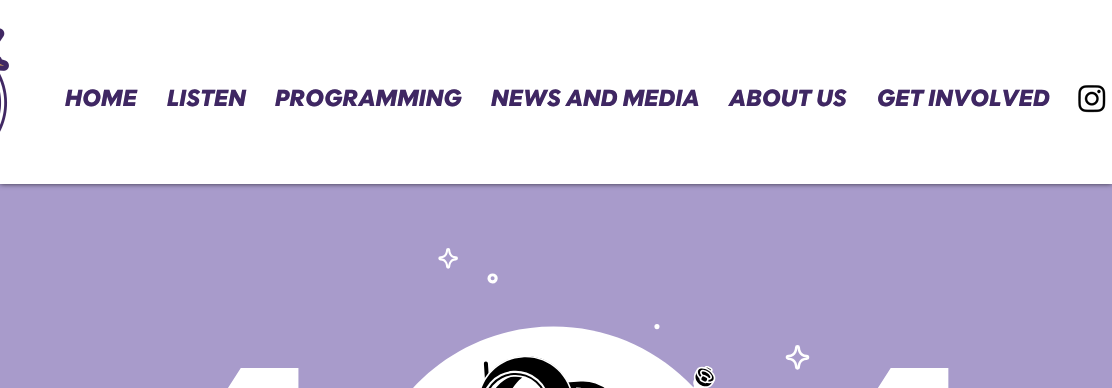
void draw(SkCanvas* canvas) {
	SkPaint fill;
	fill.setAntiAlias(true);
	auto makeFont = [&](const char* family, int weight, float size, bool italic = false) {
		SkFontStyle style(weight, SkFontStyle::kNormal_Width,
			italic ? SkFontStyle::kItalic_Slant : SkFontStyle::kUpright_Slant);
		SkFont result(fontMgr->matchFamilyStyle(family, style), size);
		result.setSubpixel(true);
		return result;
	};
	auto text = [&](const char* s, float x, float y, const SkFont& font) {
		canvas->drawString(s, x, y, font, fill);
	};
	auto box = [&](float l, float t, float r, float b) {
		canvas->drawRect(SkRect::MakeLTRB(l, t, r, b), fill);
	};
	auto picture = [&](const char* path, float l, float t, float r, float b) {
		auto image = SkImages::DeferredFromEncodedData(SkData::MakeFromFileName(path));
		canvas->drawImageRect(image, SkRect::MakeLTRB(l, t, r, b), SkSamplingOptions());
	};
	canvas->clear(0xFFA89BCB);
	fill.setColor(0xB3000000);
	fill.setMaskFilter(SkMaskFilter::MakeBlur(kNormal_SkBlurStyle, 2.5f));
	canvas->drawRect(SkRect::MakeLTRB(0, 0, 1112, 184), fill);
	fill.setMaskFilter(nullptr);
	fill.setColor(0xFFFFFFFF);
	box(0, 0, 1112, 184);
	picture("image0.png", 0, 28, 9, 132);
	picture("image1.png", 1078, 85, 1106, 113);
	picture("image2.png", 228, 248, 949, 388);
	auto font1 = makeFont("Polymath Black", 900, 24, true);
	fill.setColor(0xFF3F2763);
	text("HOME", 65, 106, font1);
	text("LISTEN", 167, 106, font1);
	text("PROGRAMMING", 275, 106, font1);
	text("NEWS AND MEDIA", 491, 106, font1);
	text("ABOUT US", 729, 106, font1);
	text("GET INVOLVED", 877, 106, font1);
}
